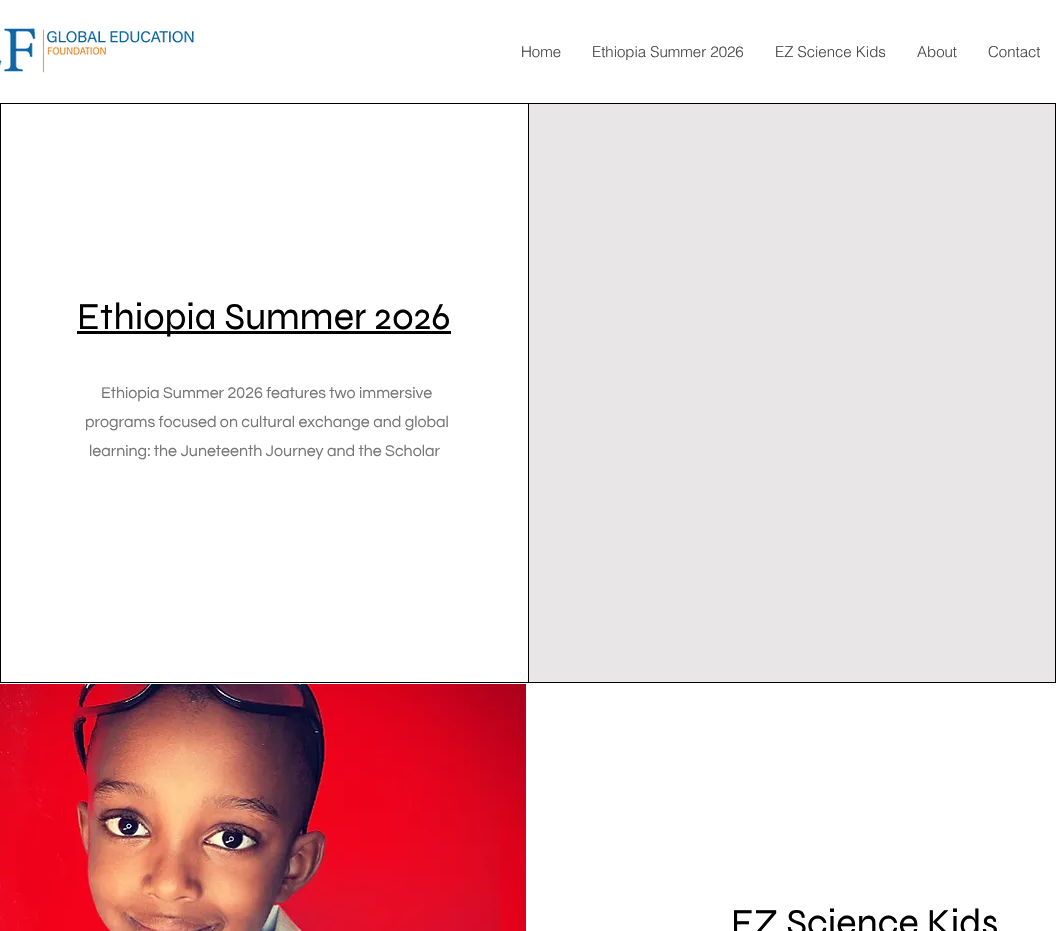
void draw(SkCanvas* canvas) {
	SkPaint fill;
	fill.setAntiAlias(true);
	auto makeFont = [&](const char* family, int weight, float size, bool italic = false) {
		SkFontStyle style(weight, SkFontStyle::kNormal_Width,
			italic ? SkFontStyle::kItalic_Slant : SkFontStyle::kUpright_Slant);
		SkFont result(fontMgr->matchFamilyStyle(family, style), size);
		result.setSubpixel(true);
		return result;
	};
	auto text = [&](const char* s, float x, float y, const SkFont& font) {
		canvas->drawString(s, x, y, font, fill);
	};
	auto box = [&](float l, float t, float r, float b) {
		canvas->drawRect(SkRect::MakeLTRB(l, t, r, b), fill);
	};
	auto picture = [&](const char* path, float l, float t, float r, float b) {
		auto image = SkImages::DeferredFromEncodedData(SkData::MakeFromFileName(path));
		canvas->drawImageRect(image, SkRect::MakeLTRB(l, t, r, b), SkSamplingOptions());
	};
	canvas->clear(0xFFFFFFFF);
	picture("image0.png", 0, 28, 194, 73);
	fill.setColor(0xFF000000);
	box(0, 103, 1056, 683);
	fill.setColor(0xFFFFFFFF);
	box(1, 104, 528, 682);
	fill.setColor(0xFF000000);
	box(77, 331, 451, 334);
	fill.setColor(0xFFE8E6E6);
	box(529, 104, 1055, 682);
	picture("image1.png", 0, 684, 526, 931);
	auto font1 = makeFont("helvetica", 300, 15);
	fill.setColor(0xFF444444);
	text("Home", 521, 57, font1);
	text("Ethiopia Summer 2026", 592, 57, font1);
	text("EZ Science Kids", 775, 57, font1);
	text("About", 917, 57, font1);
	text("Contact", 988, 57, font1);
	auto font2 = makeFont("Syne", 400, 38);
	fill.setColor(0xFF000000);
	text("Ethiopia Summer 2026", 77, 329, font2);
	auto font3 = makeFont("Questrial", 400, 16);
	fill.setColor(0xFF757575);
	text("Ethiopia Summer 2026 features two immersive", 101, 398, font3);
	text("programs focused on cultural exchange and global", 85, 427, font3);
	text("learning: the Juneteenth Journey and the Scholar", 89, 456, font3);
	fill.setColor(0xFF000000);
	text("EZ Science Kids", 731, 935, font2);
}
